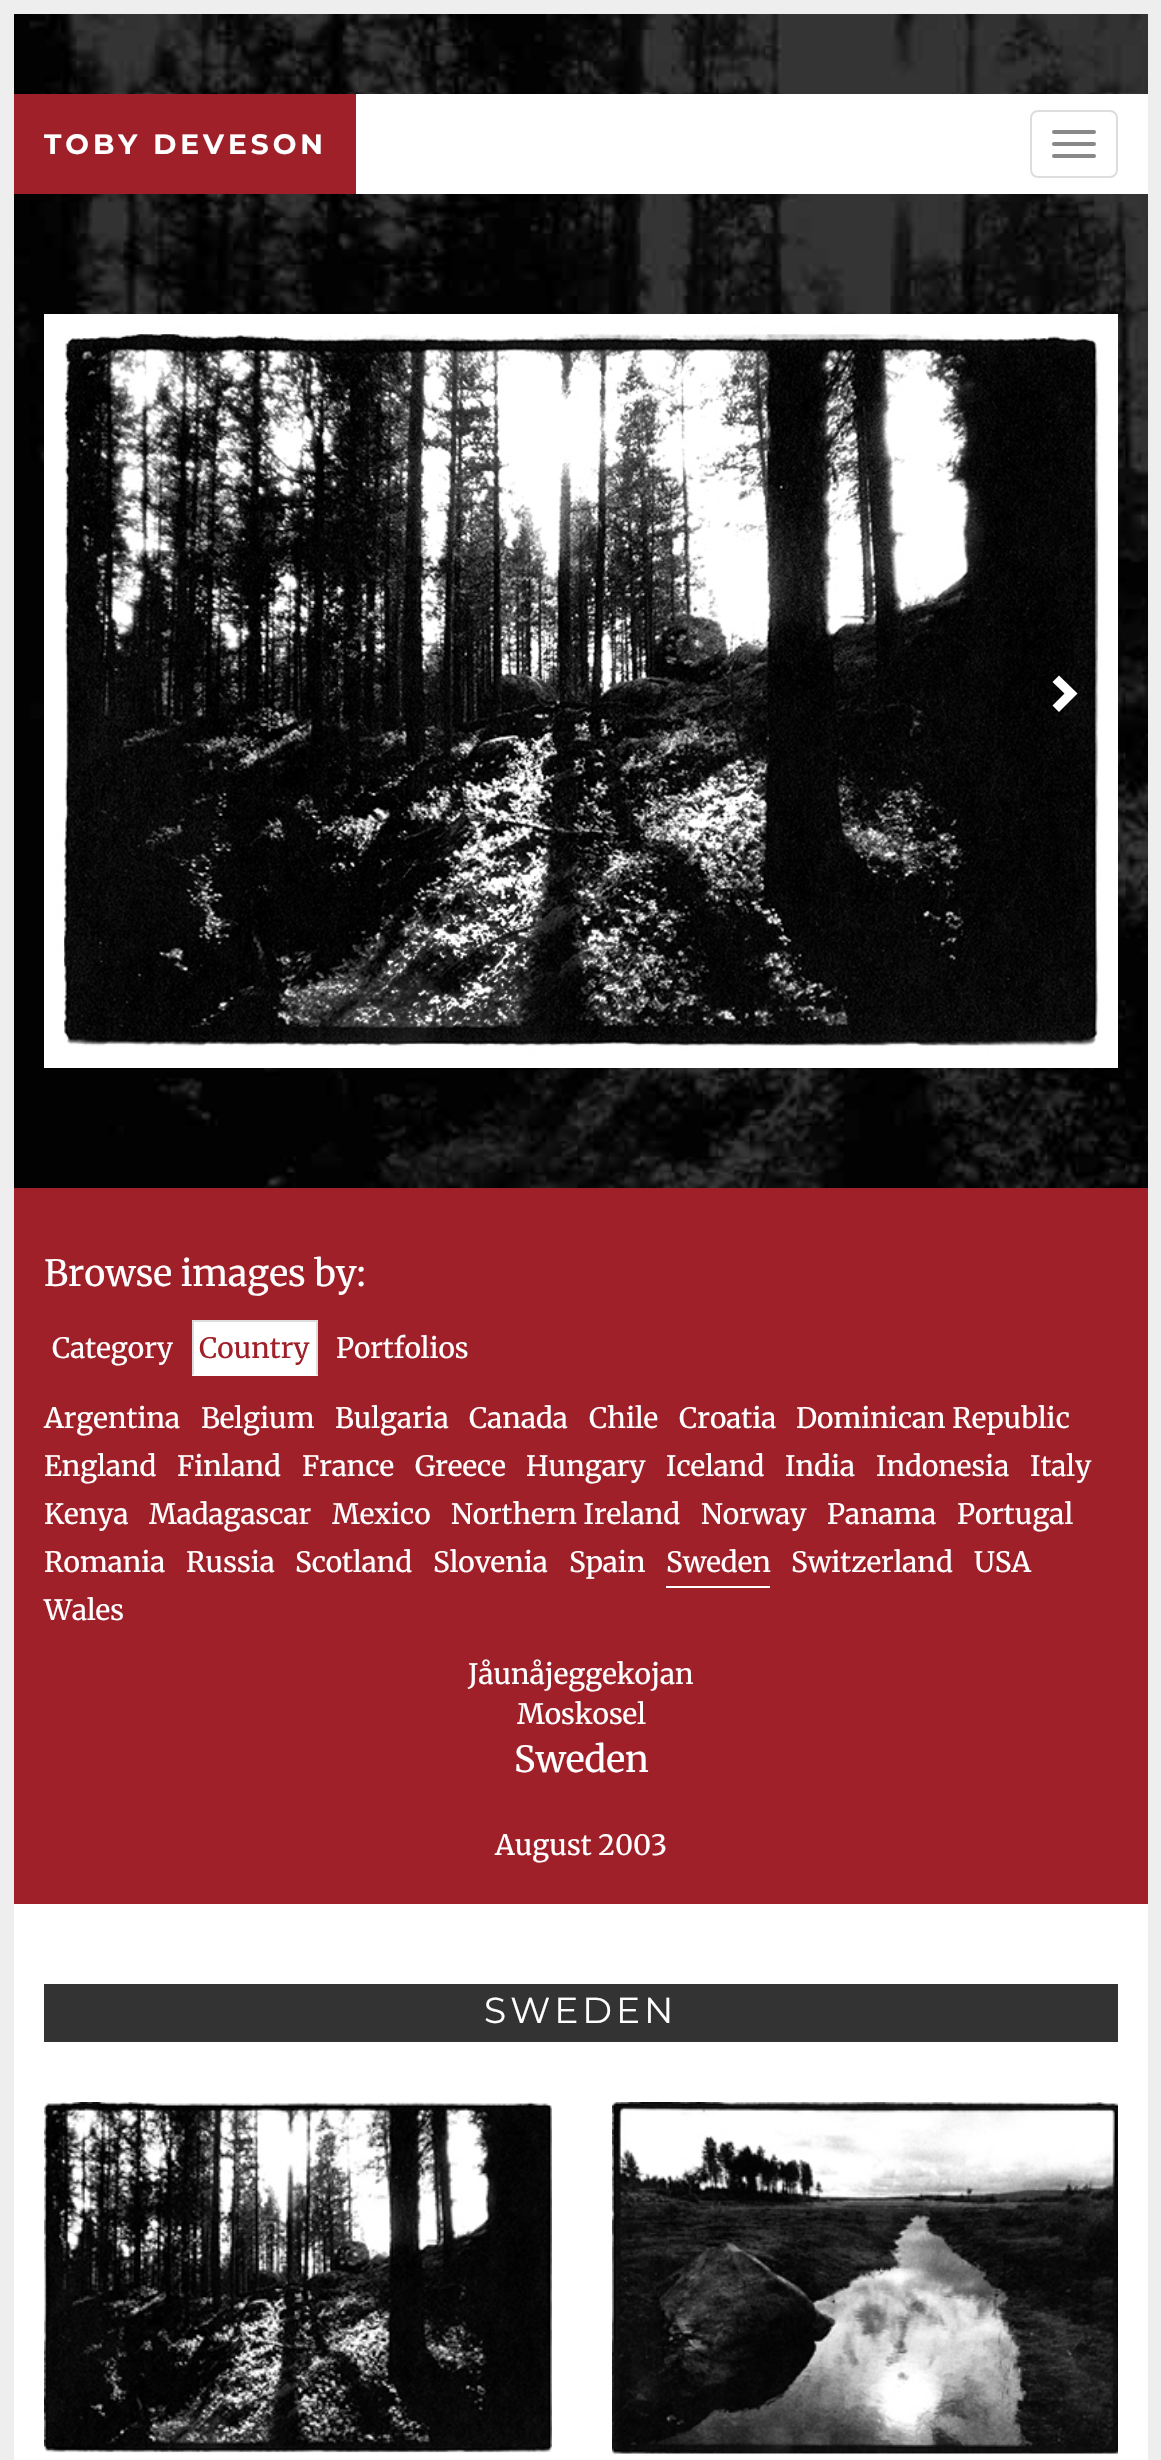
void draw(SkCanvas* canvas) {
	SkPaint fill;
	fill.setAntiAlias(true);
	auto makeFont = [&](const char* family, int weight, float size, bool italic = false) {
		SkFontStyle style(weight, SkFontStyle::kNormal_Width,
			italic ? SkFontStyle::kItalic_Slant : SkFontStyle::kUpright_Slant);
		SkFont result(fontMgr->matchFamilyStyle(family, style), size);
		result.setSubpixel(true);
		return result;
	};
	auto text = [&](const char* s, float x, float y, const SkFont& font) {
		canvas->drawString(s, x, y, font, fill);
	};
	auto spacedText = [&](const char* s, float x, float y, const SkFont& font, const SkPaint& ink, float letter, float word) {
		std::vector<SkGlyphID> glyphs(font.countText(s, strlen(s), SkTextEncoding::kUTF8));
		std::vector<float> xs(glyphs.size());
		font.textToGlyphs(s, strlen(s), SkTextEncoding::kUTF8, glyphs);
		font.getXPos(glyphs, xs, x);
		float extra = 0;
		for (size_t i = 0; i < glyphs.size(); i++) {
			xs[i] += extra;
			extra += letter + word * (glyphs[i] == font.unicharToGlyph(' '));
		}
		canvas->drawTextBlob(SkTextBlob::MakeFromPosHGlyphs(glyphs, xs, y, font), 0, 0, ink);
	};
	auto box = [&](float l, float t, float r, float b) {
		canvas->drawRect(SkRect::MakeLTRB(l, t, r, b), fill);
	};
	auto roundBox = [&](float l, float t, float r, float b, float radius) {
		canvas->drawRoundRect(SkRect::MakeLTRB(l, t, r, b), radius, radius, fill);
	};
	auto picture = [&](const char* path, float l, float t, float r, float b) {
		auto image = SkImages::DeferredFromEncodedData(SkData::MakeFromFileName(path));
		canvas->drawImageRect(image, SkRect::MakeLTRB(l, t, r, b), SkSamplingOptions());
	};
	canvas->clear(0xFFFFFFFF);
	fill.setStyle(SkPaint::kStroke_Style);
	fill.setStrokeWidth(14);
	fill.setColor(0xFFEEEEEE);
	canvas->drawRect(SkRect::MakeLTRB(7, 7, 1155, 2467), fill);
	picture("image0.png", 14, 14, 1148, 1188);
	fill.setStyle(SkPaint::kFill_Style);
	fill.setColor(0xFFFFFFFF);
	box(356, 94, 1148, 194);
	fill.setColor(0xFFA0202A);
	box(14, 94, 356, 194);
	fill.setStyle(SkPaint::kStroke_Style);
	fill.setStrokeWidth(2);
	fill.setColor(0xFFDDDDDD);
	canvas->drawRoundRect(SkRect::MakeLTRB(1031, 111, 1117, 177), 7, 7, fill);
	fill.setStyle(SkPaint::kFill_Style);
	fill.setColor(0xFF888888);
	roundBox(1052, 130, 1096, 134, 2);
	roundBox(1052, 142, 1096, 146, 2);
	roundBox(1052, 154, 1096, 158, 2);
	picture("image1.png", 44, 314, 1118, 1068);
	fill.setColor(0xFFFFFFFF);
	canvas->drawPath(SkPathBuilder().moveTo(1052.5f, 705.5f).lineTo(1059, 712).lineTo(1077.5f, 693.5f).lineTo(1059, 675.5f).lineTo(1052.5f, 682).lineTo(1064.5f, 693.5f).close().detach(), fill);
	fill.setColor(0xFFA0202A);
	box(14, 1188, 1148, 1904);
	fill.setColor(0xFFFFFFFF);
	box(192, 1322, 318, 1376);
	fill.setColor(0xFFDDDDDD);
	box(192, 1320, 318, 1322);
	canvas->drawPath(SkPathBuilder().moveTo(318, 1320).lineTo(318, 1376).lineTo(316, 1374).lineTo(316, 1322).close().detach(), fill);
	canvas->drawPath(SkPathBuilder().moveTo(192, 1376).lineTo(192, 1320).lineTo(194, 1322).lineTo(194, 1374).close().detach(), fill);
	fill.setColor(0xFFFFFFFF);
	box(666, 1586, 770, 1588);
	fill.setColor(0xFF333333);
	box(44, 1984, 1118, 2042);
	picture("image2.png", 44, 2102, 552, 2453);
	picture("image3.png", 612, 2102, 1118, 2454);
	auto font1 = makeFont("Montserrat", 700, 28);
	fill.setColor(0xFFFFFFFF);
	spacedText("TOBY DEVESON", 44, 154, font1, fill, 4, 0);
	auto font2 = makeFont("Merriweather", 400, 36);
	text("Browse images by:", 44, 1286, font2);
	auto font3 = makeFont("Merriweather", 400, 28);
	text("Category", 52, 1358, font3);
	fill.setColor(0xFFA0202A);
	text("Country", 199, 1358, font3);
	fill.setColor(0xFFFFFFFF);
	text("Portfolios", 336, 1358, font3);
	text("Argentina", 44, 1428, font3);
	text("Belgium", 201, 1428, font3);
	text("Bulgaria", 335, 1428, font3);
	text("Canada", 469, 1428, font3);
	text("Chile", 589, 1428, font3);
	text("Croatia", 679, 1428, font3);
	text("Dominican Republic", 796, 1428, font3);
	text("England", 44, 1476, font3);
	text("Finland", 177, 1476, font3);
	text("France", 302, 1476, font3);
	text("Greece", 415, 1476, font3);
	text("Hungary", 526, 1476, font3);
	text("Iceland", 666, 1476, font3);
	text("India", 785, 1476, font3);
	text("Indonesia", 876, 1476, font3);
	text("Italy", 1030, 1476, font3);
	text("Kenya", 44, 1524, font3);
	text("Madagascar", 149, 1524, font3);
	text("Mexico", 332, 1524, font3);
	text("Northern Ireland", 451, 1524, font3);
	text("Norway", 701, 1524, font3);
	text("Panama", 827, 1524, font3);
	text("Portugal", 957, 1524, font3);
	text("Romania", 44, 1572, font3);
	text("Russia", 186, 1572, font3);
	text("Scotland", 295, 1572, font3);
	text("Slovenia", 433, 1572, font3);
	text("Spain", 569, 1572, font3);
	text("Sweden", 666, 1572, font3);
	text("Switzerland", 791, 1572, font3);
	text("USA", 974, 1572, font3);
	text("Wales", 44, 1620, font3);
	text("Jåunåjeggekojan", 468, 1684, font3);
	text("Moskosel", 517, 1724, font3);
	text("Sweden", 514, 1772, font2);
	text("August 2003", 495, 1855, font3);
	auto font4 = makeFont("Montserrat", 400, 36);
	spacedText("SWEDEN", 484, 2023, font4, fill, 4, 0);
}
